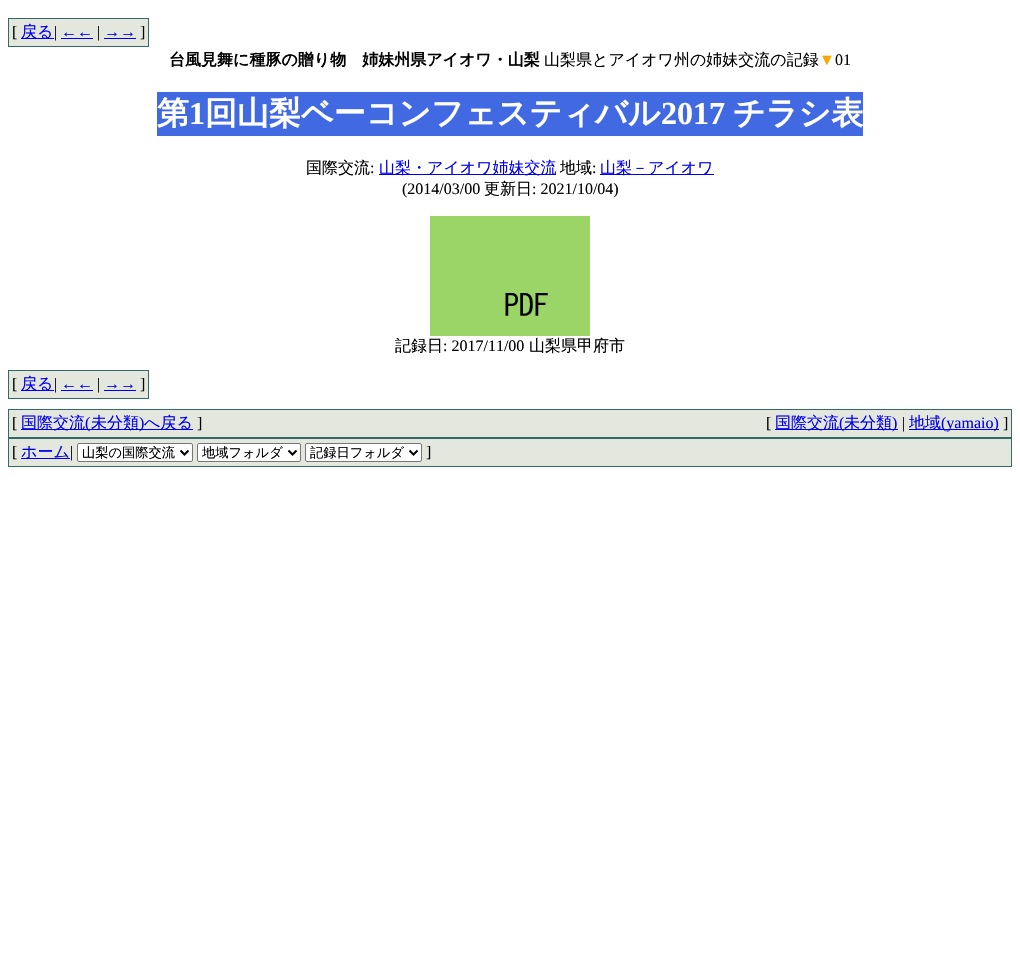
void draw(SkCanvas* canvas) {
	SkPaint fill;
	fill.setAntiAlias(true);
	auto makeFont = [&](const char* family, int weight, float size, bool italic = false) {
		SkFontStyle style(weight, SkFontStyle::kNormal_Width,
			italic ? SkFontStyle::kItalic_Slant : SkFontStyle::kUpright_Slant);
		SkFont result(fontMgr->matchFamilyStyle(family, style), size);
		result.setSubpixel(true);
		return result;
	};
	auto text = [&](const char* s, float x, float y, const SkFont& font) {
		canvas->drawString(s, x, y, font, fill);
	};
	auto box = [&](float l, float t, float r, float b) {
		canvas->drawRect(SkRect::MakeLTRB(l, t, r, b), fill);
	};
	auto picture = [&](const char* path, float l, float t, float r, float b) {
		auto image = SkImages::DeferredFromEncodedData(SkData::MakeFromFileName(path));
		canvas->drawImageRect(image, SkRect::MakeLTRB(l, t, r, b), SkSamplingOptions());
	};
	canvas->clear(0xFFFFFFFF);
	fill.setColor(0xFF346767);
	box(8, 18, 149, 47);
	fill.setColor(0xFFE4E7DD);
	box(9, 19, 148, 46);
	fill.setColor(0xFF0000EE);
	box(21, 38, 54, 39);
	box(61, 38, 93, 39);
	box(104, 38, 136, 39);
	fill.setColor(0xFF4169E1);
	box(157, 92, 863, 136);
	fill.setColor(0xFF0000EE);
	box(379, 174, 556, 175);
	box(600, 174, 714, 175);
	picture("image0.png", 430, 216, 590, 336);
	fill.setColor(0xFF346767);
	box(8, 370, 149, 399);
	fill.setColor(0xFFE4E7DD);
	box(9, 371, 148, 398);
	fill.setColor(0xFF0000EE);
	box(21, 390, 54, 391);
	box(61, 390, 93, 391);
	box(104, 390, 136, 391);
	fill.setColor(0xFF346767);
	box(8, 409, 1012, 467);
	fill.setColor(0xFFE4E7DD);
	box(9, 410, 1011, 437);
	fill.setColor(0xFF0000EE);
	box(21, 429, 193, 430);
	box(775, 429, 898, 430);
	box(909, 429, 999, 430);
	fill.setColor(0xFFE4E7DD);
	box(9, 439, 1011, 466);
	fill.setColor(0xFF0000EE);
	box(21, 458, 70, 459);
	fill.setColor(0xFFFFFFFF);
	canvas->drawRoundRect(SkRect::MakeLTRB(77.5f, 443.5f, 192.5f, 461.5f), 1.5f, 1.5f, fill);
	fill.setStyle(SkPaint::kStroke_Style);
	fill.setStrokeWidth(1);
	fill.setColor(0xFF767676);
	canvas->drawRoundRect(SkRect::MakeLTRB(77.5f, 443.5f, 192.5f, 461.5f), 1.5f, 1.5f, fill);
	fill.setStrokeWidth(2);
	fill.setColor(0xFF000000);
	canvas->drawPath(SkPathBuilder().moveTo(180.5f, 450.5f).lineTo(184.5f, 454.5f).lineTo(188.5f, 450.5f).detach(), fill);
	fill.setStyle(SkPaint::kFill_Style);
	fill.setColor(0xFFFFFFFF);
	canvas->drawRoundRect(SkRect::MakeLTRB(197.5f, 443.5f, 300.5f, 461.5f), 1.5f, 1.5f, fill);
	fill.setStyle(SkPaint::kStroke_Style);
	fill.setStrokeWidth(1);
	fill.setColor(0xFF767676);
	canvas->drawRoundRect(SkRect::MakeLTRB(197.5f, 443.5f, 300.5f, 461.5f), 1.5f, 1.5f, fill);
	fill.setStrokeWidth(2);
	fill.setColor(0xFF000000);
	canvas->drawPath(SkPathBuilder().moveTo(288.5f, 450.5f).lineTo(292.5f, 454.5f).lineTo(296.5f, 450.5f).detach(), fill);
	fill.setStyle(SkPaint::kFill_Style);
	fill.setColor(0xFFFFFFFF);
	canvas->drawRoundRect(SkRect::MakeLTRB(305.5f, 443.5f, 421.5f, 461.5f), 1.5f, 1.5f, fill);
	fill.setStyle(SkPaint::kStroke_Style);
	fill.setStrokeWidth(1);
	fill.setColor(0xFF767676);
	canvas->drawRoundRect(SkRect::MakeLTRB(305.5f, 443.5f, 421.5f, 461.5f), 1.5f, 1.5f, fill);
	fill.setStrokeWidth(2);
	fill.setColor(0xFF000000);
	canvas->drawPath(SkPathBuilder().moveTo(409.5f, 450.5f).lineTo(413.5f, 454.5f).lineTo(417.5f, 450.5f).detach(), fill);
	auto font1 = makeFont("Liberation Serif", 400, 16);
	fill.setStyle(SkPaint::kFill_Style);
	text("[", 12, 37, font1);
	auto font2 = makeFont("WenQuanYi Zen Hei", 500, 16);
	fill.setColor(0xFF0000EE);
	text("戻る", 21, 37, font2);
	fill.setColor(0xFF000000);
	text("|", 54, 37, font1);
	fill.setColor(0xFF0000EE);
	text("←←", 61, 37, font1);
	fill.setColor(0xFF000000);
	text("|", 97, 37, font1);
	fill.setColor(0xFF0000EE);
	text("→→", 104, 37, font1);
	fill.setColor(0xFF000000);
	text("]", 140, 37, font1);
	auto font3 = makeFont("WenQuanYi Zen Hei", 700, 16);
	text("台風見舞に種豚の贈り物　姉妹州県アイオワ・山梨", 169, 65, font3);
	text("山梨県とアイオワ州の姉妹交流の記録", 544, 65, font2);
	fill.setColor(0xFFFFA500);
	text("▼", 819, 65, font1);
	fill.setColor(0xFF000000);
	text("01", 835, 65, font1);
	auto font4 = makeFont("WenQuanYi Zen Hei", 700, 32);
	fill.setColor(0xFFFFFFFF);
	text("第", 157, 124, font4);
	auto font5 = makeFont("Liberation Serif", 700, 32);
	text("1", 189, 124, font5);
	text("回山梨ベーコンフェスティバル", 205, 124, font4);
	text("2017", 661, 124, font5);
	text("チラシ表", 733, 124, font4);
	fill.setColor(0xFF000000);
	text("国際交流", 306, 173, font2);
	text(":", 370, 173, font1);
	fill.setColor(0xFF0000EE);
	text("山梨・アイオワ姉妹交流", 379, 173, font2);
	fill.setColor(0xFF000000);
	text("地域", 560, 173, font2);
	text(":", 592, 173, font1);
	fill.setColor(0xFF0000EE);
	text("山梨－アイオワ", 600, 173, font2);
	fill.setColor(0xFF000000);
	text("(2014/03/00", 402, 194, font1);
	text("更新日", 484, 194, font2);
	text(": 2021/10/04)", 532, 194, font1);
	text("記録日", 395, 351, font2);
	text(": 2017/11/00", 443, 351, font1);
	text("山梨県甲府市", 529, 351, font2);
	text("[", 12, 389, font1);
	fill.setColor(0xFF0000EE);
	text("戻る", 21, 389, font2);
	fill.setColor(0xFF000000);
	text("|", 54, 389, font1);
	fill.setColor(0xFF0000EE);
	text("←←", 61, 389, font1);
	fill.setColor(0xFF000000);
	text("|", 97, 389, font1);
	fill.setColor(0xFF0000EE);
	text("→→", 104, 389, font1);
	fill.setColor(0xFF000000);
	text("]", 140, 389, font1);
	text("[", 12, 428, font1);
	fill.setColor(0xFF0000EE);
	text("国際交流", 21, 428, font2);
	text("(", 85, 428, font1);
	text("未分類", 91, 428, font2);
	text(")", 139, 428, font1);
	text("へ戻る", 144, 428, font2);
	fill.setColor(0xFF000000);
	text("]", 197, 428, font1);
	text("[", 766, 428, font1);
	fill.setColor(0xFF0000EE);
	text("国際交流", 775, 428, font2);
	text("(", 839, 428, font1);
	text("未分類", 844, 428, font2);
	text(")", 892, 428, font1);
	fill.setColor(0xFF000000);
	text("|", 902, 428, font1);
	fill.setColor(0xFF0000EE);
	text("地域", 909, 428, font2);
	text("(yamaio)", 941, 428, font1);
	fill.setColor(0xFF000000);
	text("]", 1003, 428, font1);
	text("[", 12, 457, font1);
	fill.setColor(0xFF0000EE);
	text("ホーム", 21, 457, font2);
	fill.setColor(0xFF000000);
	text("|", 70, 457, font1);
	auto font6 = makeFont("WenQuanYi Zen Hei", 500, 13.25f);
	text("山梨の国際交流", 82, 457, font6);
	text("地域フォルダ", 202, 457, font6);
	text("記録日フォルダ", 310, 457, font6);
	text("]", 426, 457, font1);
}
